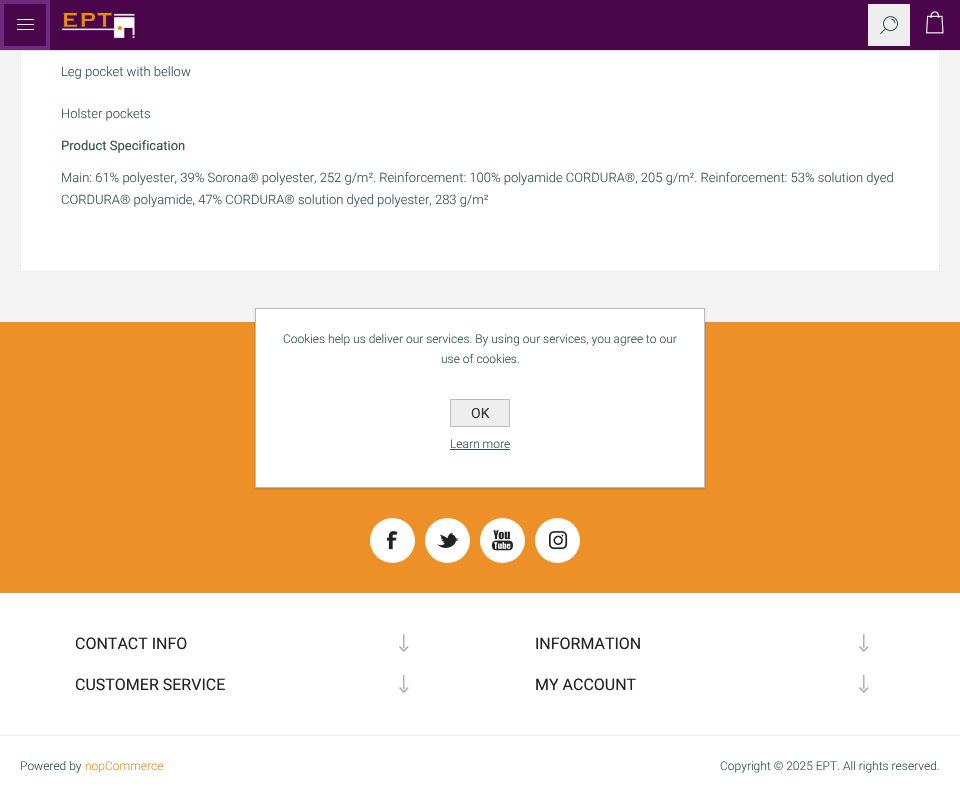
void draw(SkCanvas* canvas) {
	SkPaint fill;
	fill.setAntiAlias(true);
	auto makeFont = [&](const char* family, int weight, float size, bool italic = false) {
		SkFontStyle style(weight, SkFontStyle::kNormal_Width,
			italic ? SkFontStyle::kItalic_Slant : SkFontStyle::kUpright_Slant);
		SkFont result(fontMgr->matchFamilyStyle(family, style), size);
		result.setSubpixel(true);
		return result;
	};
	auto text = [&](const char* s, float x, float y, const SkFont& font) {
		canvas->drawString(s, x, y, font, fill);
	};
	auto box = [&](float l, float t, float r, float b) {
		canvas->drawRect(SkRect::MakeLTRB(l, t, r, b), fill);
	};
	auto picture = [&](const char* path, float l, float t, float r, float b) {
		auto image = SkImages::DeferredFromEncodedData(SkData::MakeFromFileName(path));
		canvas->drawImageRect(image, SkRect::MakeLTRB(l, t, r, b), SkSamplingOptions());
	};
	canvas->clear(0xFFF3F3F3);
	fill.setColor(0xFFFFFFFF);
	box(21, 51, 939, 271);
	fill.setStyle(SkPaint::kStroke_Style);
	fill.setStrokeWidth(1);
	fill.setColor(0xFFEEEEEE);
	canvas->drawRect(SkRect::MakeLTRB(20.5f, -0.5f, 939.5f, 271.5f), fill);
	fill.setStyle(SkPaint::kFill_Style);
	fill.setColor(0xFFE3E3E3);
	box(0, 50, 960, 51);
	fill.setColor(0xFF4B064B);
	box(4, 0, 960, 50);
	picture("image0.png", 60, 10, 137, 40);
	fill.setColor(0xFFEEEEEE);
	box(868, 4, 910, 46);
	picture("image1.png", 880, 16, 898, 34);
	fill.setStyle(SkPaint::kStroke_Style);
	fill.setStrokeWidth(4);
	fill.setColor(0xFF702B81);
	canvas->drawRect(SkRect::MakeLTRB(2, 2, 48, 48), fill);
	fill.setStyle(SkPaint::kFill_Style);
	fill.setColor(0xFFFFFFFF);
	box(17, 19, 34, 20);
	box(17, 24, 34, 25);
	box(17, 29, 34, 30);
	picture("image2.png", 926, 11, 944, 34);
	box(0, 593, 960, 735);
	fill.setColor(0xFFEC9027);
	box(0, 322, 960, 593);
	fill.setColor(0xFFFFFFFF);
	canvas->drawCircle(392.5f, 540.5f, 22.5f, fill);
	picture("image3.png", 387, 531, 398, 550);
	canvas->drawCircle(447.5f, 540.5f, 22.5f, fill);
	picture("image4.png", 437, 533, 459, 548);
	canvas->drawCircle(502.5f, 540.5f, 22.5f, fill);
	picture("image5.png", 492, 530, 513, 551);
	canvas->drawCircle(557.5f, 540.5f, 22.5f, fill);
	picture("image6.png", 549, 531, 568, 550);
	picture("image7.png", 399, 634, 409, 652);
	picture("image7.png", 859, 634, 869, 652);
	picture("image7.png", 399, 675, 409, 693);
	picture("image7.png", 859, 675, 869, 693);
	box(0, 736, 960, 796);
	fill.setColor(0xFFEEEEEE);
	box(0, 735, 960, 736);
	fill.setColor(0x33000000);
	fill.setMaskFilter(SkMaskFilter::MakeBlur(kNormal_SkBlurStyle, 1));
	canvas->drawRect(SkRect::MakeLTRB(255, 309, 705, 489), fill);
	fill.setMaskFilter(nullptr);
	fill.setColor(0xFFFFFFFF);
	canvas->drawRect(SkRect::MakeLTRB(255.5f, 308.5f, 704.5f, 487.5f), fill);
	fill.setStyle(SkPaint::kStroke_Style);
	fill.setStrokeWidth(1);
	fill.setColor(0xFFBBBBBB);
	canvas->drawRect(SkRect::MakeLTRB(255.5f, 308.5f, 704.5f, 487.5f), fill);
	fill.setStyle(SkPaint::kFill_Style);
	fill.setColor(0xFFEEEEEE);
	canvas->drawRect(SkRect::MakeLTRB(450.5f, 399.5f, 509.5f, 426.5f), fill);
	fill.setStyle(SkPaint::kStroke_Style);
	fill.setColor(0xFFBBBBBB);
	canvas->drawRect(SkRect::MakeLTRB(450.5f, 399.5f, 509.5f, 426.5f), fill);
	fill.setStyle(SkPaint::kFill_Style);
	fill.setColor(0xFF2F4F4F);
	box(450, 449, 510, 450);
	auto font1 = makeFont("Roboto", 300, 13);
	text("Leg pocket with bellow", 61, 76, font1);
	text("Holster pockets", 61, 118, font1);
	auto font2 = makeFont("Roboto", 400, 13);
	text("Product Specification", 61, 150, font2);
	text("Main: 61% polyester, 39% Sorona® polyester, 252 g/m². Reinforcement: 100% polyamide CORDURA®, 205 g/m². Reinforcement: 53% solution dyed", 61, 182, font1);
	text("CORDURA® polyamide, 47% CORDURA® solution dyed polyester, 283 g/m²", 61, 204, font1);
	auto font3 = makeFont("Roboto", 400, 16);
	fill.setColor(0xFF222222);
	text("CONTACT INFO", 75, 649, font3);
	text("INFORMATION", 535, 649, font3);
	text("CUSTOMER SERVICE", 75, 690, font3);
	text("MY ACCOUNT", 535, 690, font3);
	auto font4 = makeFont("Roboto", 300, 12);
	fill.setColor(0xFF2F4F4F);
	text("Powered by", 20, 770, font4);
	fill.setColor(0xFFEC9027);
	text("nopCommerce", 85, 770, font4);
	fill.setColor(0xFF2F4F4F);
	text("Copyright © 2025 EPT. All rights reserved.", 720, 770, font4);
	text("Cookies help us deliver our services. By using our services, you agree to our", 283, 343, font4);
	text("use of cookies.", 441, 363, font4);
	auto font5 = makeFont("Roboto", 400, 14);
	fill.setColor(0xFF333333);
	text("OK", 471, 418, font5);
	fill.setColor(0xFF2F4F4F);
	text("Learn more", 450, 448, font4);
}
